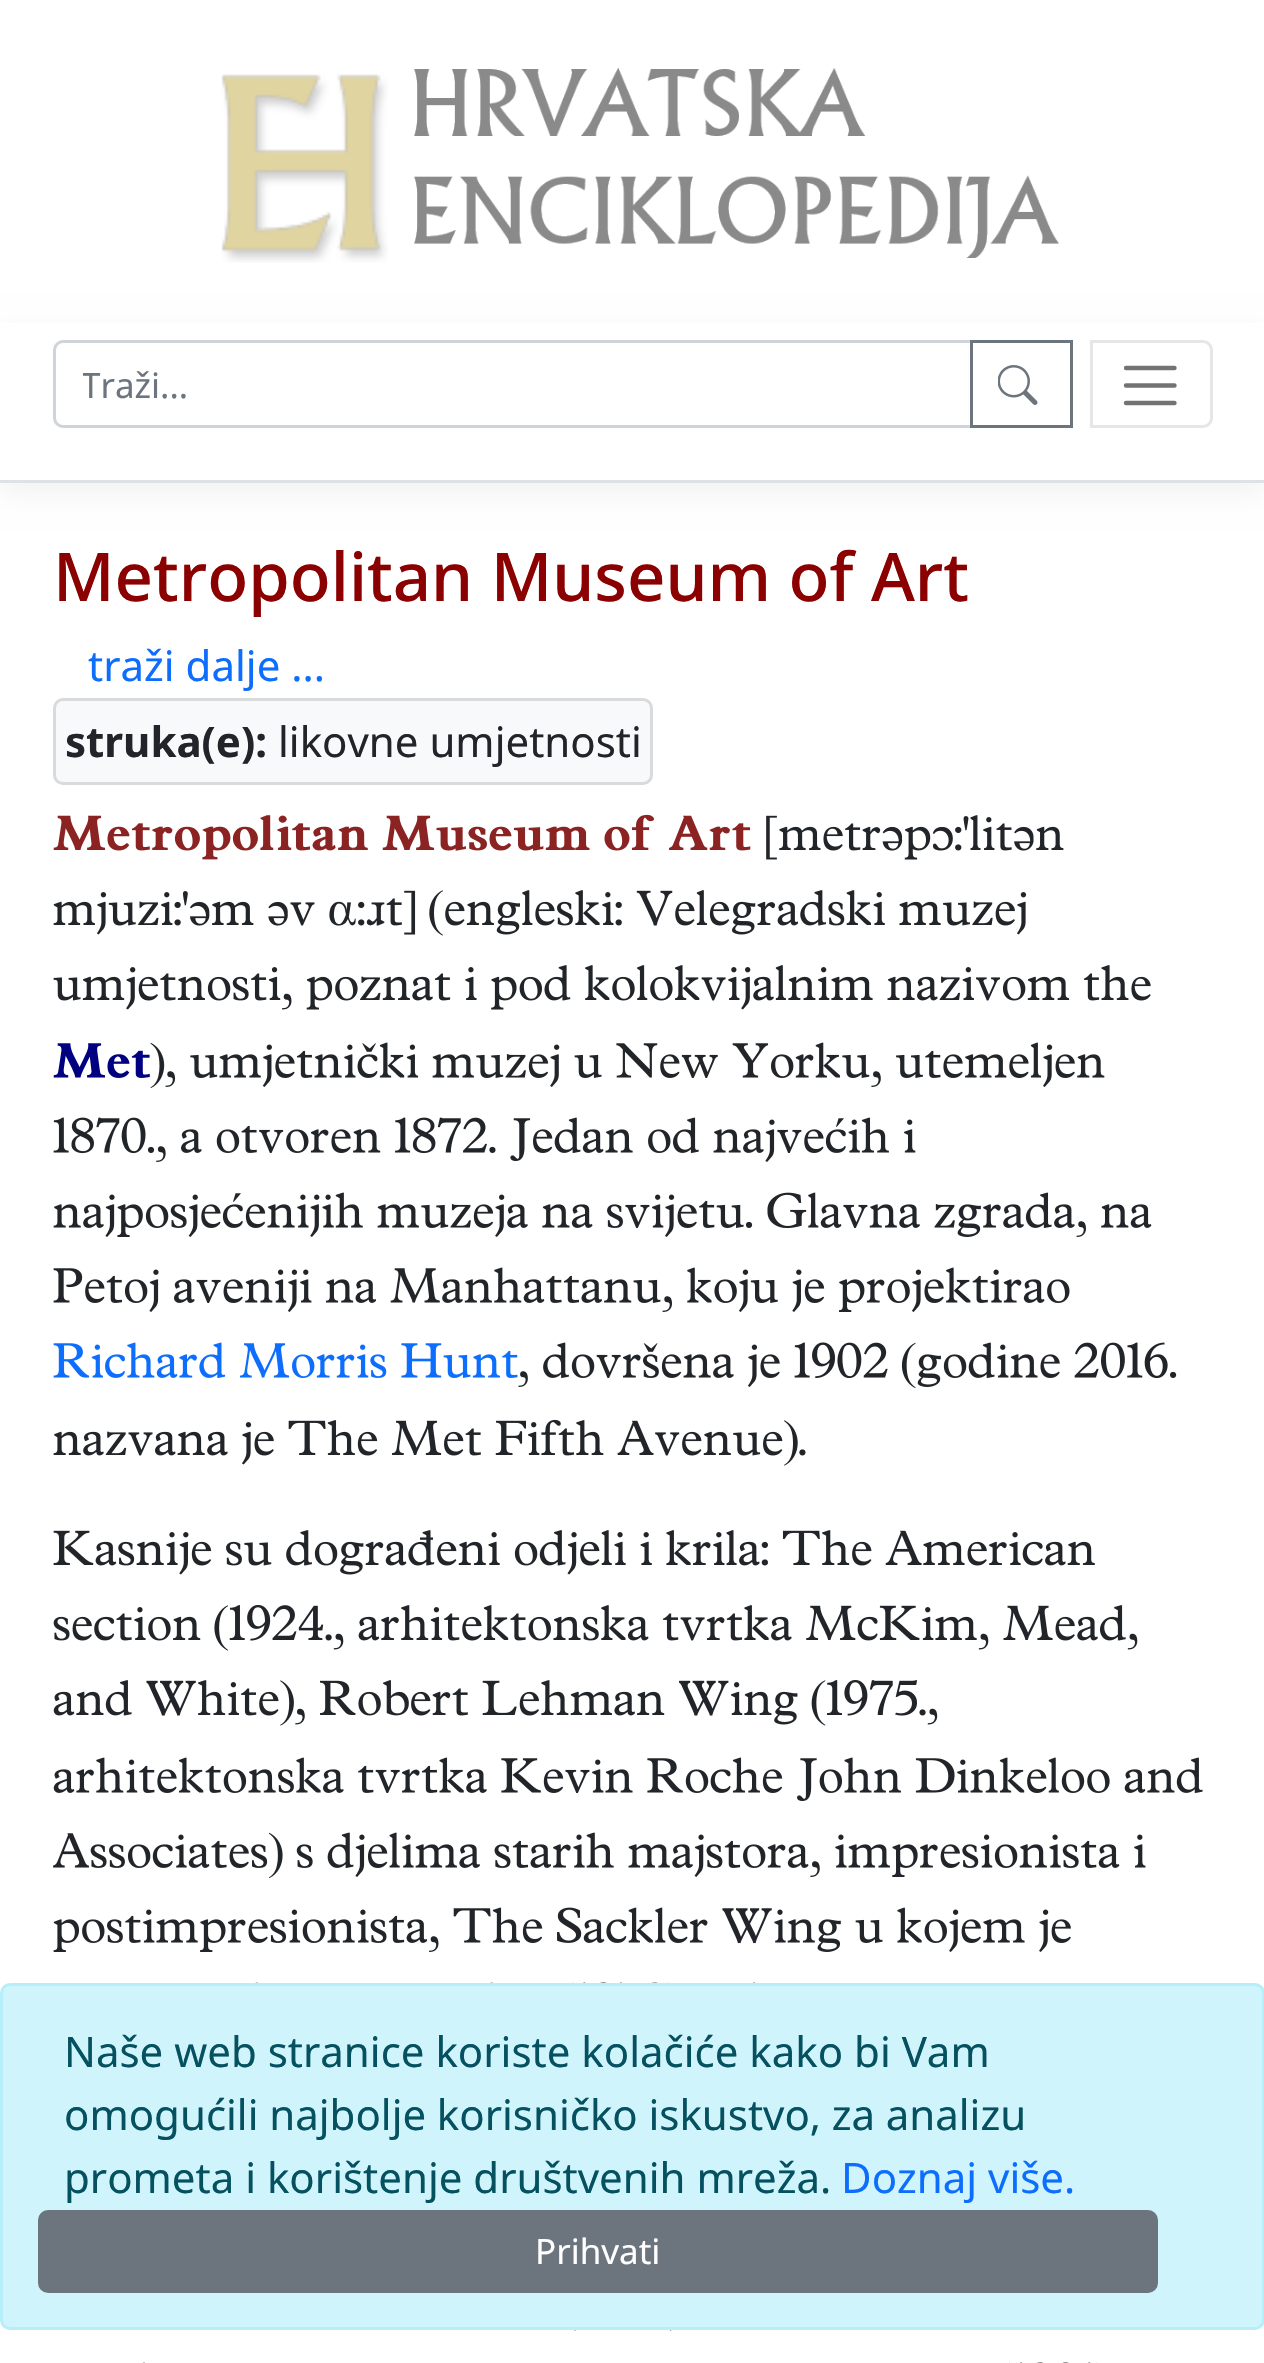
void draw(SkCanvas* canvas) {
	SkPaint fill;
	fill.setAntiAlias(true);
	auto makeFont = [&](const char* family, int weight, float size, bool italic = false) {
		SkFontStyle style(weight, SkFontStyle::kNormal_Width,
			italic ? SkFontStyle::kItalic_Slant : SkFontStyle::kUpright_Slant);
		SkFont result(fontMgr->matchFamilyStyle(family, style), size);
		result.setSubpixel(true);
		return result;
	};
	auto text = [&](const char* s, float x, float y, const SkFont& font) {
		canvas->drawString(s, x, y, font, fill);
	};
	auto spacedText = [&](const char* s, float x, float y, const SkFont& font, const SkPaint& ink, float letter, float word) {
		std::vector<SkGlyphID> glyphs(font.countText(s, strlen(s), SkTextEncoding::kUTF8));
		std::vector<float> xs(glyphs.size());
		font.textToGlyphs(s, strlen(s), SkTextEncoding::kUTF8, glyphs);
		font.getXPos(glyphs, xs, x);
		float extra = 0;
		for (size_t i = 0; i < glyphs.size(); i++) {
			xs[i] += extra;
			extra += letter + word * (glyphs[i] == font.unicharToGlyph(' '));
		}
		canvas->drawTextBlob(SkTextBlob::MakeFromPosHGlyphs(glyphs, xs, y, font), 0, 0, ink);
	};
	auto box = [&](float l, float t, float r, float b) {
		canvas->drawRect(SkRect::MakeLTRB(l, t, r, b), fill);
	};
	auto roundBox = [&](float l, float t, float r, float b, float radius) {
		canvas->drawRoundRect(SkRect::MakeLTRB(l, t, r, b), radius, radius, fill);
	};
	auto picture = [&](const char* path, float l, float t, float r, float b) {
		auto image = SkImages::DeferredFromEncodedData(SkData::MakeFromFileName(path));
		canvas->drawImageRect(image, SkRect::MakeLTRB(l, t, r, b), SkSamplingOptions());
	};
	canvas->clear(0xFFFFFFFF);
	picture("image0.png", 221, 74, 388, 263);
	picture("image1.png", 414, 68, 1059, 258);
	fill.setColor(0x0D000000);
	fill.setMaskFilter(SkMaskFilter::MakeBlur(kNormal_SkBlurStyle, 13));
	canvas->drawRect(SkRect::MakeLTRB(0, 333, 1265, 493), fill);
	fill.setMaskFilter(nullptr);
	fill.setColor(0xFFFFFFFF);
	box(0, 323, 1264, 480);
	fill.setColor(0xFFDEE2E6);
	box(0, 480, 1264, 483);
	fill.setStyle(SkPaint::kStroke_Style);
	fill.setStrokeWidth(3);
	fill.setColor(0xFFCED4DA);
	canvas->drawPath(SkPathBuilder().moveTo(63, 341.5f).lineTo(971.5f, 341.5f).lineTo(971.5f, 426.5f).lineTo(63, 426.5f).cubicTo(58.5f, 426.5f, 54.5f, 422.5f, 54.5f, 418).lineTo(54.5f, 350).cubicTo(54.5f, 345.5f, 58.5f, 341.5f, 63, 341.5f).close().detach(), fill);
	fill.setColor(0xFF6C757D);
	canvas->drawRect(SkRect::MakeLTRB(971.5f, 341.5f, 1071.5f, 426.5f), fill);
	picture("image2.png", 998, 365, 1038, 405);
	fill.setColor(0xFFE6E6E6);
	canvas->drawPath(SkPathBuilder().moveTo(1091.5f, 341.5f).lineTo(1203, 341.5f).cubicTo(1207.5f, 341.5f, 1211.5f, 345.5f, 1211.5f, 350).lineTo(1211.5f, 418).cubicTo(1211.5f, 422.5f, 1207.5f, 426.5f, 1203, 426.5f).lineTo(1091.5f, 426.5f).close().detach(), fill);
	fill.setStrokeWidth(4.4f);
	fill.setStrokeCap(SkPaint::kRound_Cap);
	fill.setColor(0xFF737373);
	canvas->drawPath(SkPathBuilder().moveTo(1126, 368).lineTo(1174.5f, 368).moveTo(1126, 385.5f).lineTo(1174.5f, 385.5f).moveTo(1126, 403).lineTo(1174.5f, 403).detach(), fill);
	fill.setStyle(SkPaint::kFill_Style);
	fill.setColor(0xFFF8F9FA);
	roundBox(53, 698, 653, 785, 10);
	fill.setStyle(SkPaint::kStroke_Style);
	fill.setStrokeWidth(3);
	fill.setStrokeCap(SkPaint::kButt_Cap);
	fill.setColor(0x1F000000);
	canvas->drawRoundRect(SkRect::MakeLTRB(54.5f, 699.5f, 651.5f, 783.5f), 8.5f, 8.5f, fill);
	picture("image3.png", 53, 814, 751, 860);
	picture("image4.png", 766, 815, 1064, 860);
	picture("image5.png", 53, 890, 1027, 936);
	picture("image6.png", 53, 965, 1151, 1010);
	picture("image7.png", 53, 1043, 150, 1078);
	picture("image8.png", 150, 1042, 1105, 1089);
	picture("image9.png", 53, 1117, 916, 1162);
	picture("image10.png", 53, 1192, 1152, 1237);
	picture("image11.png", 53, 1267, 1070, 1312);
	picture("image12.png", 53, 1342, 518, 1378);
	picture("image13.png", 518, 1342, 1177, 1389);
	picture("image14.png", 53, 1419, 806, 1466);
	picture("image15.png", 53, 1530, 1095, 1575);
	picture("image16.png", 53, 1605, 1138, 1651);
	picture("image17.png", 53, 1680, 938, 1726);
	picture("image18.png", 53, 1757, 1203, 1801);
	picture("image19.png", 53, 1832, 1146, 1879);
	picture("image20.png", 53, 1907, 1071, 1952);
	picture("image21.png", 255, 1982, 755, 1983);
	picture("image22.png", 574, 2330, 672, 2331);
	picture("image23.png", 142, 2362, 1098, 2363);
	fill.setStyle(SkPaint::kFill_Style);
	fill.setColor(0xFFCFF4FC);
	canvas->drawRoundRect(SkRect::MakeLTRB(1.5f, 1984.5f, 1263.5f, 2328.5f), 8.5f, 8.5f, fill);
	fill.setStyle(SkPaint::kStroke_Style);
	fill.setColor(0xFFB6EFFB);
	canvas->drawRoundRect(SkRect::MakeLTRB(1.5f, 1984.5f, 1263.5f, 2328.5f), 8.5f, 8.5f, fill);
	fill.setStyle(SkPaint::kFill_Style);
	fill.setColor(0xFF6C757D);
	canvas->drawRoundRect(SkRect::MakeLTRB(39.5f, 2211.5f, 1156.5f, 2291.5f), 8.5f, 8.5f, fill);
	fill.setStyle(SkPaint::kStroke_Style);
	canvas->drawRoundRect(SkRect::MakeLTRB(39.5f, 2211.5f, 1156.5f, 2291.5f), 8.5f, 8.5f, fill);
	canvas->save();
	canvas->clipRect(SkRect::MakeLTRB(83, 360, 908, 408));
	auto font1 = makeFont("Noto Sans", 400, 35);
	fill.setStyle(SkPaint::kFill_Style);
	text("Traži...", 81, 398, font1);
	canvas->restore();
	auto font2 = makeFont("Noto Sans", 500, 67.1f);
	fill.setColor(0xFF8B0000);
	text("Metropolitan Museum of Art", 53, 601, font2);
	auto font3 = makeFont("Noto Sans", 400, 42);
	fill.setColor(0xFF0D6EFD);
	text("traži dalje ...", 88, 681, font3);
	auto font4 = makeFont("Noto Sans", 700, 42);
	fill.setColor(0xFF212529);
	text("struka(e):", 65, 757, font4);
	text("likovne umjetnosti", 278, 757, font3);
	fill.setColor(0xFF055160);
	text("Naše web stranice koriste kolačiće kako bi Vam", 64, 2067, font3);
	spacedText("omogućili najbolje korisničko iskustvo, za analizu", 64, 2130, font3, fill, 0, -0.25f);
	text("prometa i korištenje društvenih mreža.", 64, 2193, font3);
	fill.setColor(0xFF0D6EFD);
	text("Doznaj više.", 841, 2193, font3);
	fill.setColor(0xFFFFFFFF);
	text("Prihvati", 535, 2264, font1);
}
